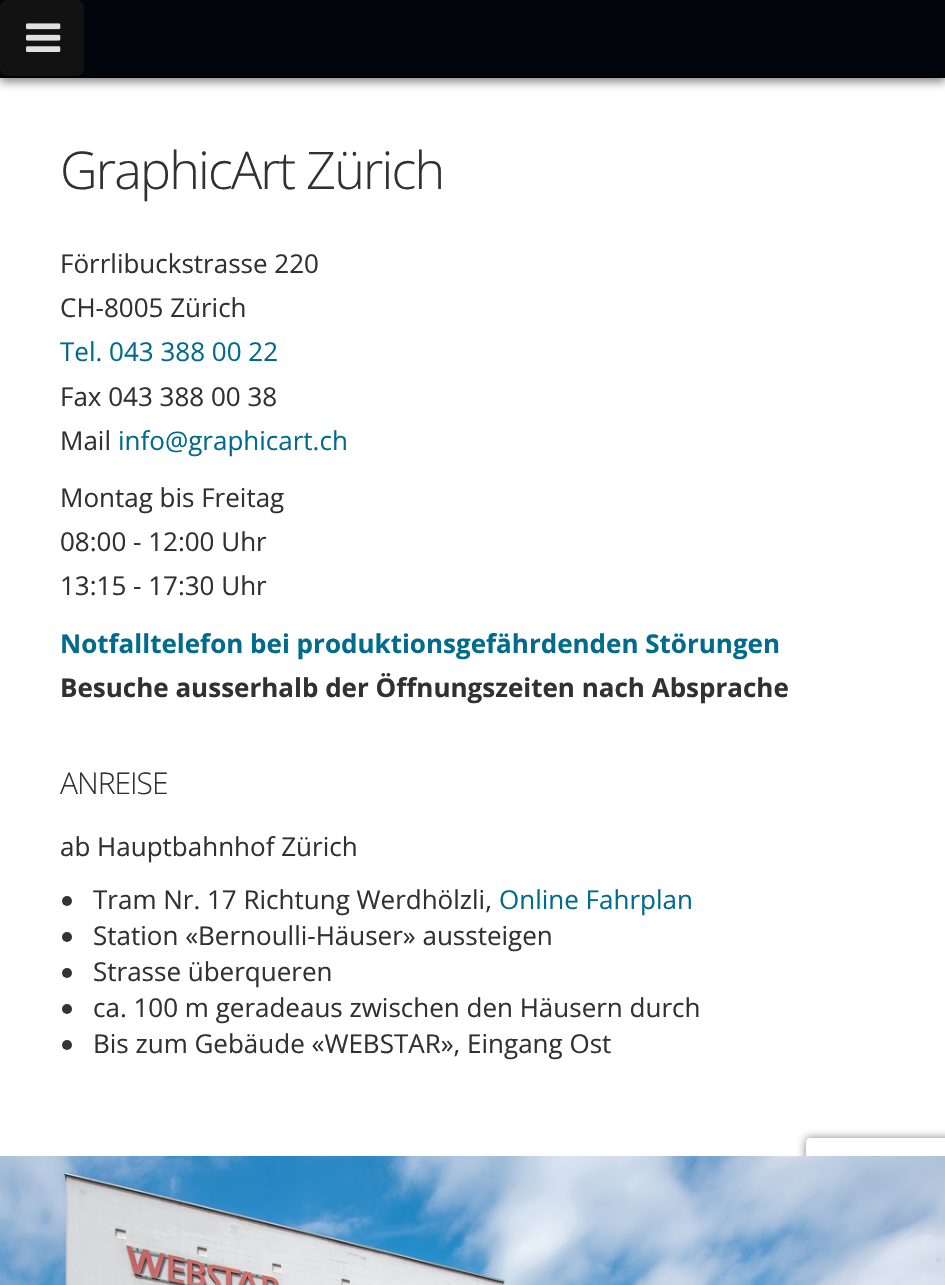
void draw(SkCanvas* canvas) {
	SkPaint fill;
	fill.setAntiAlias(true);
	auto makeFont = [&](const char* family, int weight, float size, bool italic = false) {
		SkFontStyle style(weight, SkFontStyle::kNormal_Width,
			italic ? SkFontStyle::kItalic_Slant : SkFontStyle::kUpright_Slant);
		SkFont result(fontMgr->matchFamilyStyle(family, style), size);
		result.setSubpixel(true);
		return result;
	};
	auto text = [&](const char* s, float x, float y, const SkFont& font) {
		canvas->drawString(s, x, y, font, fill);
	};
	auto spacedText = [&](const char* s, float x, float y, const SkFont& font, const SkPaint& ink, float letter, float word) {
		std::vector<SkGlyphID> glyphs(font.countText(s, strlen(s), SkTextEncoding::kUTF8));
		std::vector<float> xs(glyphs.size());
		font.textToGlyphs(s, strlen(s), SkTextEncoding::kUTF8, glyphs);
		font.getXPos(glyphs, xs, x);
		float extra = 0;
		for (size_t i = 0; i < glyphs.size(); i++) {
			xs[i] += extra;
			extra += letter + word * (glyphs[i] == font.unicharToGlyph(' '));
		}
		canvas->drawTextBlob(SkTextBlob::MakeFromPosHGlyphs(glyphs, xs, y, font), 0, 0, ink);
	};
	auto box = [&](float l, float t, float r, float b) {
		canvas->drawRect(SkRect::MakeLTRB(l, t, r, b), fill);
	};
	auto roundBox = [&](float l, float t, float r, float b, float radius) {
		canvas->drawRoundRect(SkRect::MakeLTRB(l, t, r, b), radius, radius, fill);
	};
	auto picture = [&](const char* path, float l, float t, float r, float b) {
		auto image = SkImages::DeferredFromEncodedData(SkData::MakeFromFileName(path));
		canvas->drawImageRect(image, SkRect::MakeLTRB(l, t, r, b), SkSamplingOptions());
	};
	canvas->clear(0xFFFFFFFF);
	fill.setColor(0x78000000);
	fill.setMaskFilter(SkMaskFilter::MakeBlur(kNormal_SkBlurStyle, 4.5f));
	canvas->drawRect(SkRect::MakeLTRB(0, 4, 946, 82), fill);
	fill.setMaskFilter(nullptr);
	fill.setColor(0xFF03050D);
	box(0, 0, 945, 76);
	fill.setColor(0xFF000000);
	box(0, 76, 945, 78);
	fill.setColor(0xFF121212);
	roundBox(0, 0, 84, 76, 8);
	picture("image0.png", 26, 23, 61, 52);
	fill.setColor(0xFF333333);
	canvas->drawCircle(67, 901, 5, fill);
	canvas->drawCircle(67, 937, 5, fill);
	canvas->drawCircle(67, 973, 5, fill);
	canvas->drawCircle(67, 1009, 5, fill);
	canvas->drawCircle(67, 1045, 5, fill);
	canvas->save();
	canvas->clipPath(SkPathBuilder(SkPathFillType::kEvenOdd).moveTo(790, 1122).lineTo(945, 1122).lineTo(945, 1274).lineTo(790, 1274).close().moveTo(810, 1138).lineTo(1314, 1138).cubicTo(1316, 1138, 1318, 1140, 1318, 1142).lineTo(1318, 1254).cubicTo(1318, 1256, 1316, 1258, 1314, 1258).lineTo(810, 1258).cubicTo(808, 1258, 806, 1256, 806, 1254).lineTo(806, 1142).cubicTo(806, 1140, 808, 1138, 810, 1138).close().detach(), true);
	fill.setColor(0xFF808080);
	fill.setMaskFilter(SkMaskFilter::MakeBlur(kNormal_SkBlurStyle, 5));
	canvas->drawRoundRect(SkRect::MakeLTRB(806, 1138, 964, 1258), 4, 4, fill);
	fill.setMaskFilter(nullptr);
	canvas->restore();
	picture("image1.png", 0, 1156, 945, 1285);
	auto font1 = makeFont("Open Sans", 300, 52);
	fill.setColor(0xFF313131);
	spacedText("GraphicArt Zürich", 60, 189, font1, fill, -1.8f, 0);
	auto font2 = makeFont("Open Sans", 400, 26);
	text("Förrlibuckstrasse 220", 60, 273, font2);
	text("CH-8005 Zürich", 60, 317, font2);
	fill.setColor(0xFF006B8D);
	text("Tel. 043 388 00 22", 60, 361, font2);
	fill.setColor(0xFF313131);
	text("Fax 043 388 00 38", 60, 406, font2);
	text("Mail", 60, 450, font2);
	fill.setColor(0xFF006B8D);
	text("info@graphicart.ch", 118, 450, font2);
	fill.setColor(0xFF313131);
	text("Montag bis Freitag", 60, 507, font2);
	text("08:00 - 12:00 Uhr", 60, 551, font2);
	text("13:15 - 17:30 Uhr", 60, 595, font2);
	auto font3 = makeFont("Open Sans", 700, 26);
	fill.setColor(0xFF006B8D);
	text("Notfalltelefon bei produktionsgefährdenden Störungen", 60, 653, font3);
	fill.setColor(0xFF313131);
	text("Besuche ausserhalb der Öffnungszeiten nach Absprache", 60, 697, font3);
	auto font4 = makeFont("Open Sans", 300, 30);
	spacedText("ANREISE", 60, 794, font4, fill, -1, 0);
	text("ab Hauptbahnhof Zürich", 60, 856, font2);
	text("Tram Nr. 17 Richtung Werdhölzli,", 93, 909, font2);
	fill.setColor(0xFF006B8D);
	text("Online Fahrplan", 499, 909, font2);
	fill.setColor(0xFF313131);
	text("Station «Bernoulli-Häuser» aussteigen", 93, 945, font2);
	text("Strasse überqueren", 93, 981, font2);
	text("ca. 100 m geradeaus zwischen den Häusern durch", 93, 1017, font2);
	text("Bis zum Gebäude «WEBSTAR», Eingang Ost", 93, 1053, font2);
}
